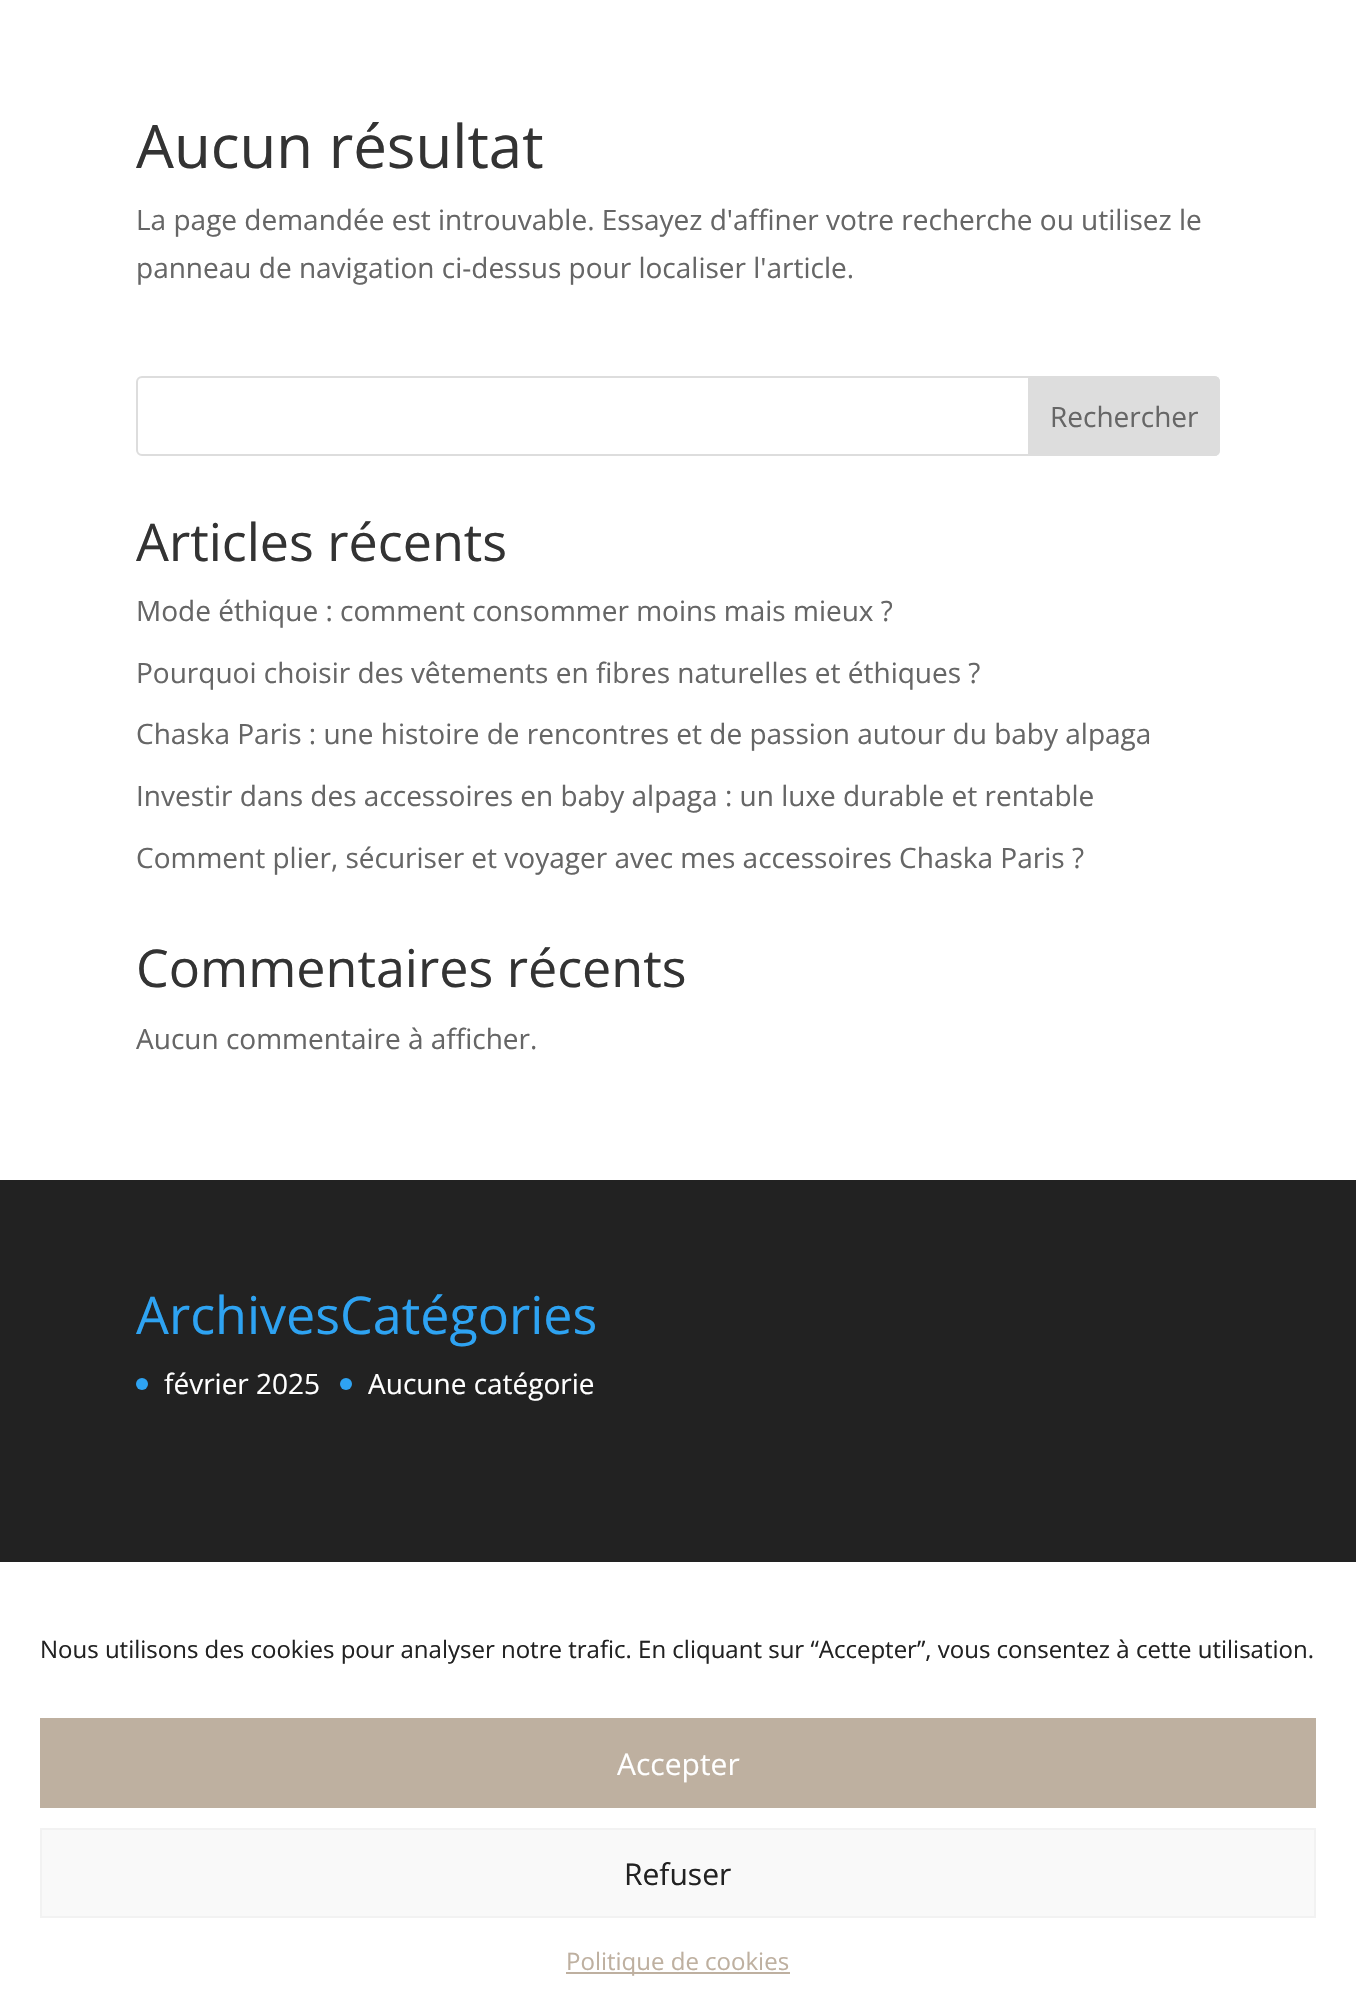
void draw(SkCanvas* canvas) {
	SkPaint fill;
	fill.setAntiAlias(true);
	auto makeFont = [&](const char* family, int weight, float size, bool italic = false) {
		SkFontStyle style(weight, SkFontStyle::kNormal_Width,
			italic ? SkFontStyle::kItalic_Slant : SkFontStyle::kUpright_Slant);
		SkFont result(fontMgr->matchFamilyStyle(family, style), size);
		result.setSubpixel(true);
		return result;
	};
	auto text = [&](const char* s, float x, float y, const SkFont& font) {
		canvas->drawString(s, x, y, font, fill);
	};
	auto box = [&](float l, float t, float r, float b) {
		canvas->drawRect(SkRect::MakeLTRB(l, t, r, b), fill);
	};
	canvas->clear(0xFFFFFFFF);
	fill.setStyle(SkPaint::kStroke_Style);
	fill.setStrokeWidth(2);
	fill.setColor(0xFFDDDDDD);
	canvas->drawRoundRect(SkRect::MakeLTRB(137, 377, 1219, 455), 5, 5, fill);
	fill.setStyle(SkPaint::kFill_Style);
	canvas->drawPath(SkPathBuilder().moveTo(1029, 377).lineTo(1214, 377).cubicTo(1217, 377, 1219, 379, 1219, 382).lineTo(1219, 450).cubicTo(1219, 453, 1217, 455, 1214, 455).lineTo(1029, 455).close().detach(), fill);
	fill.setStyle(SkPaint::kStroke_Style);
	canvas->drawPath(SkPathBuilder().moveTo(1029, 377).lineTo(1214, 377).cubicTo(1217, 377, 1219, 379, 1219, 382).lineTo(1219, 450).cubicTo(1219, 453, 1217, 455, 1214, 455).lineTo(1029, 455).close().detach(), fill);
	fill.setStyle(SkPaint::kFill_Style);
	fill.setColor(0xFF222222);
	box(0, 1180, 1356, 1562);
	fill.setColor(0xFF2EA3F2);
	canvas->drawCircle(142, 1384, 6, fill);
	canvas->drawCircle(346, 1384, 6, fill);
	fill.setColor(0xFFBEB0A0);
	box(40, 1718, 1316, 1808);
	fill.setColor(0xFFF9F9F9);
	canvas->drawRect(SkRect::MakeLTRB(41, 1829, 1315, 1917), fill);
	fill.setStyle(SkPaint::kStroke_Style);
	fill.setColor(0xFFF2F2F2);
	canvas->drawRect(SkRect::MakeLTRB(41, 1829, 1315, 1917), fill);
	fill.setStyle(SkPaint::kFill_Style);
	fill.setColor(0xFFBEB0A0);
	box(566, 1972, 790, 1974);
	auto font1 = makeFont("Open Sans", 400, 60);
	fill.setColor(0xFF333333);
	text("Aucun résultat", 136, 168, font1);
	auto font2 = makeFont("Open Sans", 400, 28);
	fill.setColor(0xFF666666);
	text("La page demandée est introuvable. Essayez d'affiner votre recherche ou utilisez le", 136, 230, font2);
	text("panneau de navigation ci-dessus pour localiser l'article.", 136, 278, font2);
	text("Rechercher", 1050, 427, font2);
	auto font3 = makeFont("Open Sans", 400, 52);
	fill.setColor(0xFF333333);
	text("Articles récents", 136, 561, font3);
	fill.setColor(0xFF666666);
	text("Mode éthique : comment consommer moins mais mieux ?", 136, 621, font2);
	text("Pourquoi choisir des vêtements en fibres naturelles et éthiques ?", 136, 683, font2);
	text("Chaska Paris : une histoire de rencontres et de passion autour du baby alpaga", 136, 744, font2);
	text("Investir dans des accessoires en baby alpaga : un luxe durable et rentable", 136, 806, font2);
	text("Comment plier, sécuriser et voyager avec mes accessoires Chaska Paris ?", 136, 868, font2);
	fill.setColor(0xFF333333);
	text("Commentaires récents", 136, 987, font3);
	fill.setColor(0xFF666666);
	text("Aucun commentaire à afficher.", 136, 1049, font2);
	fill.setColor(0xFF2EA3F2);
	text("ArchivesCatégories", 136, 1334, font3);
	fill.setColor(0xFFFFFFFF);
	text("février 2025", 164, 1394, font2);
	text("Aucune catégorie", 368, 1394, font2);
	auto font4 = makeFont("Open Sans", 400, 24);
	fill.setColor(0xFF222222);
	text("Nous utilisons des cookies pour analyser notre trafic. En cliquant sur “Accepter”, vous consentez à cette utilisation.", 40, 1658, font4);
	auto font5 = makeFont("Open Sans", 400, 30);
	fill.setColor(0xFFFFFFFF);
	text("Accepter", 617, 1775, font5);
	fill.setColor(0xFF222222);
	text("Refuser", 624, 1885, font5);
	fill.setColor(0xFFBEB0A0);
	text("Politique de cookies", 566, 1970, font4);
}
